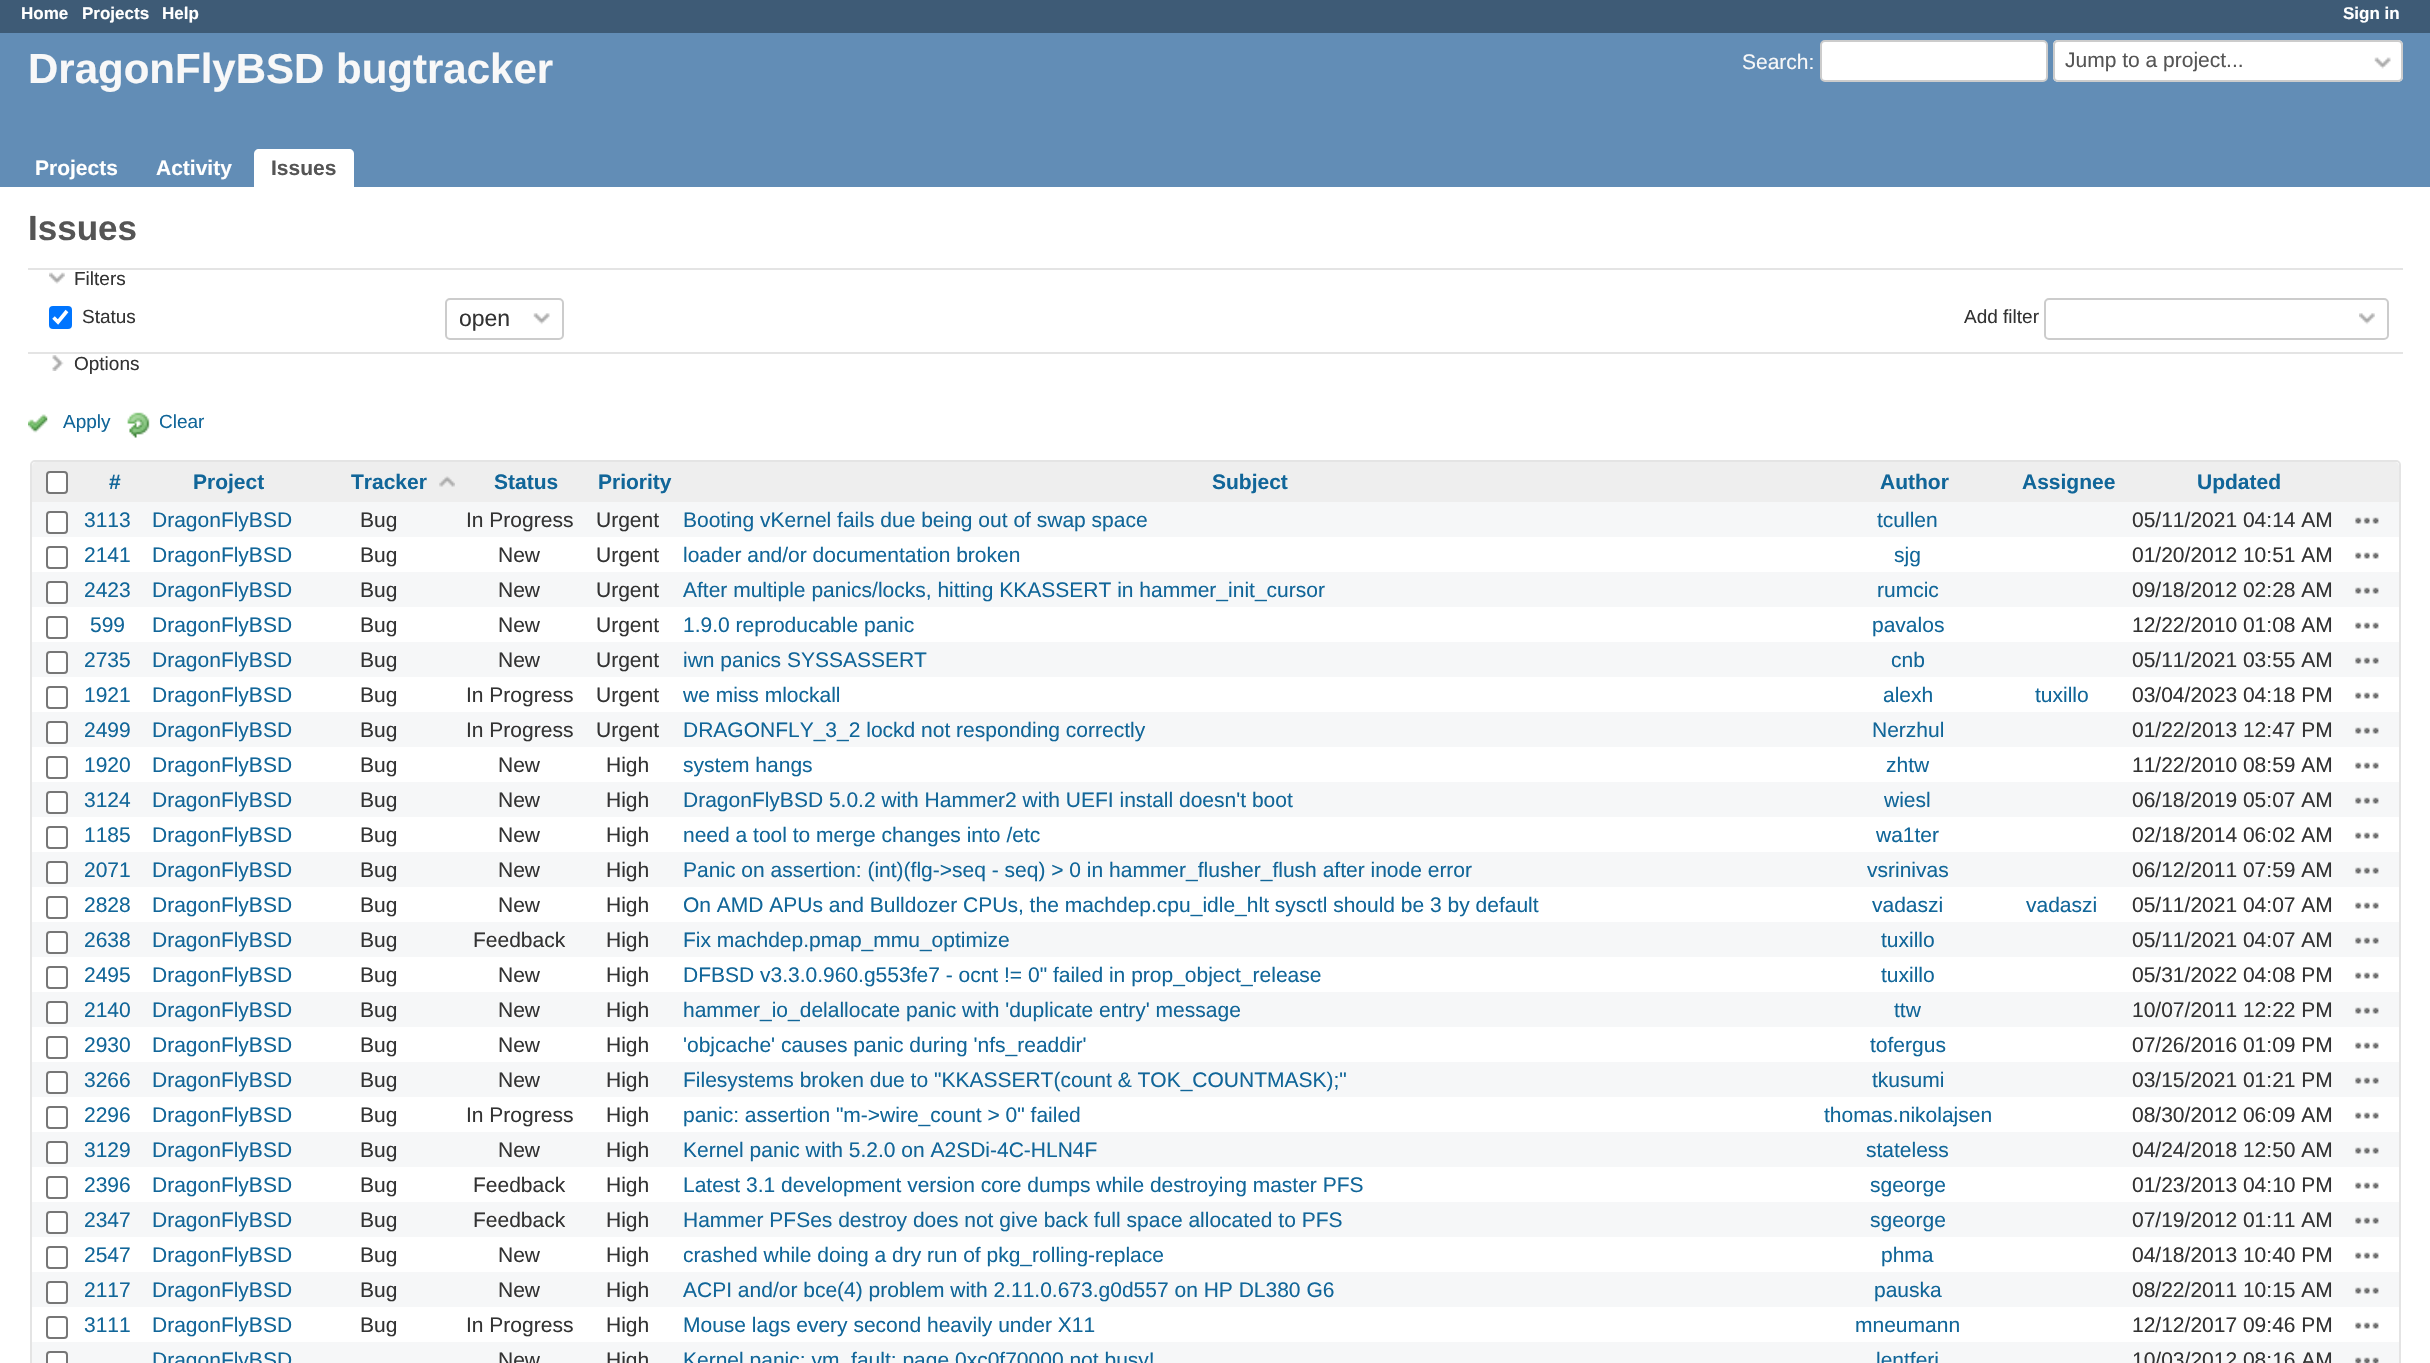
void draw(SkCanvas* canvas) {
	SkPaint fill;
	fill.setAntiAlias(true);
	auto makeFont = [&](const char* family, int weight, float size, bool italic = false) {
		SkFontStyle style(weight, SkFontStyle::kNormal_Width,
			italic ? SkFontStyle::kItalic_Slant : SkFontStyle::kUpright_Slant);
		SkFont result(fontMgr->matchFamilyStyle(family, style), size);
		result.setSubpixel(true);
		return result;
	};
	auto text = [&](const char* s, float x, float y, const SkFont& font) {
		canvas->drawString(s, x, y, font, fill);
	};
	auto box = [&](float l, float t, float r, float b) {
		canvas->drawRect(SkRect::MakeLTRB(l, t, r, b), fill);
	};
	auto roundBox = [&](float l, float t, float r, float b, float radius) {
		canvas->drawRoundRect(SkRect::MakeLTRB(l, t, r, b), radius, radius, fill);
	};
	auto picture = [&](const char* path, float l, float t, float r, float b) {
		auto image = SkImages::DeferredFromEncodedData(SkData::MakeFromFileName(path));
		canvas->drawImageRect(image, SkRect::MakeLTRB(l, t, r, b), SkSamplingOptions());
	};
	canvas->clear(0xFFFFFFFF);
	fill.setColor(0xFF3E5B76);
	box(0, 0, 2430, 33);
	fill.setColor(0xFF628DB6);
	box(0, 33, 2430, 187);
	fill.setColor(0xFFFFFFFF);
	canvas->drawRoundRect(SkRect::MakeLTRB(1821, 41, 2047, 81), 4, 4, fill);
	fill.setStyle(SkPaint::kStroke_Style);
	fill.setStrokeWidth(2);
	fill.setColor(0xFFCCCCCC);
	canvas->drawRoundRect(SkRect::MakeLTRB(1821, 41, 2047, 81), 4, 4, fill);
	fill.setStyle(SkPaint::kFill_Style);
	fill.setColor(0xFFFFFFFF);
	roundBox(2053, 40, 2403, 82, 5);
	picture("image0.png", 2374, 57, 2391, 69);
	fill.setStyle(SkPaint::kStroke_Style);
	fill.setColor(0xFFCCCCCC);
	canvas->drawRoundRect(SkRect::MakeLTRB(2054, 41, 2402, 81), 4, 4, fill);
	fill.setStyle(SkPaint::kFill_Style);
	fill.setColor(0xFFFFFFFF);
	canvas->drawPath(SkPathBuilder().moveTo(259, 149).lineTo(349, 149).cubicTo(352, 149, 354, 151, 354, 154).lineTo(354, 187).lineTo(254, 187).lineTo(254, 154).cubicTo(254, 151, 256, 149, 259, 149).close().detach(), fill);
	fill.setColor(0xFFE4E4E4);
	box(28, 268, 2403, 270);
	picture("image1.png", 49, 272, 65, 284);
	fill.setColor(0xFF0075FF);
	roundBox(49, 306, 72, 329, 4);
	fill.setStyle(SkPaint::kStroke_Style);
	fill.setStrokeWidth(3.6f);
	fill.setColor(0xFFFFFFFF);
	canvas->drawPath(SkPathBuilder().moveTo(53.5f, 317.5f).lineTo(58, 322).lineTo(67, 311).detach(), fill);
	picture("image2.png", 533, 313, 550, 325);
	fill.setStrokeWidth(2);
	fill.setColor(0xFFCCCCCC);
	canvas->drawRoundRect(SkRect::MakeLTRB(446, 299, 563, 339), 4, 4, fill);
	picture("image3.png", 2359, 313, 2375, 325);
	canvas->drawRoundRect(SkRect::MakeLTRB(2045, 299, 2388, 339), 4, 4, fill);
	fill.setStyle(SkPaint::kFill_Style);
	fill.setColor(0xFFE4E4E4);
	box(28, 352, 2403, 354);
	picture("image4.png", 52, 355, 64, 371);
	picture("image5.png", 28, 414, 48, 433);
	picture("image6.png", 127, 412, 150, 438);
	fill.setStyle(SkPaint::kStroke_Style);
	canvas->drawRoundRect(SkRect::MakeLTRB(31, 461, 2400, 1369), 4, 4, fill);
	fill.setStyle(SkPaint::kFill_Style);
	fill.setColor(0xFFEEEEEE);
	canvas->drawPath(SkPathBuilder().moveTo(36, 462).lineTo(81, 462).lineTo(81, 502).lineTo(32, 502).lineTo(32, 466).cubicTo(32, 464, 34, 462, 36, 462).close().detach(), fill);
	fill.setColor(0xFFFFFFFF);
	canvas->drawRoundRect(SkRect::MakeLTRB(47, 472, 67, 493), 3, 3, fill);
	fill.setStyle(SkPaint::kStroke_Style);
	fill.setColor(0xFF767676);
	canvas->drawRoundRect(SkRect::MakeLTRB(47, 472, 67, 493), 3, 3, fill);
	fill.setStyle(SkPaint::kFill_Style);
	fill.setColor(0xFFEEEEEE);
	box(81, 462, 2350, 502);
	picture("image7.png", 439, 476, 455, 487);
	canvas->drawPath(SkPathBuilder().moveTo(2350, 462).lineTo(2395, 462).cubicTo(2397, 462, 2399, 464, 2399, 466).lineTo(2399, 502).lineTo(2350, 502).close().detach(), fill);
	fill.setColor(0xFFF6F7F8);
	box(32, 502, 2399, 537);
	fill.setColor(0xFFFFFFFF);
	canvas->drawRoundRect(SkRect::MakeLTRB(47, 512, 67, 533), 3, 3, fill);
	fill.setStyle(SkPaint::kStroke_Style);
	fill.setColor(0xFF767676);
	canvas->drawRoundRect(SkRect::MakeLTRB(47, 512, 67, 533), 3, 3, fill);
	picture("image8.png", 2355, 517, 2379, 524);
	canvas->drawRoundRect(SkRect::MakeLTRB(47, 547, 67, 568), 3, 3, fill);
	picture("image9.png", 2355, 552, 2379, 559);
	fill.setStyle(SkPaint::kFill_Style);
	fill.setColor(0xFFF6F7F8);
	box(32, 572, 2399, 607);
	fill.setColor(0xFFFFFFFF);
	canvas->drawRoundRect(SkRect::MakeLTRB(47, 582, 67, 603), 3, 3, fill);
	fill.setStyle(SkPaint::kStroke_Style);
	fill.setColor(0xFF767676);
	canvas->drawRoundRect(SkRect::MakeLTRB(47, 582, 67, 603), 3, 3, fill);
	picture("image8.png", 2355, 587, 2379, 594);
	canvas->drawRoundRect(SkRect::MakeLTRB(47, 617, 67, 638), 3, 3, fill);
	picture("image9.png", 2355, 622, 2379, 629);
	fill.setStyle(SkPaint::kFill_Style);
	fill.setColor(0xFFF6F7F8);
	box(32, 642, 2399, 677);
	fill.setColor(0xFFFFFFFF);
	canvas->drawRoundRect(SkRect::MakeLTRB(47, 652, 67, 673), 3, 3, fill);
	fill.setStyle(SkPaint::kStroke_Style);
	fill.setColor(0xFF767676);
	canvas->drawRoundRect(SkRect::MakeLTRB(47, 652, 67, 673), 3, 3, fill);
	picture("image8.png", 2355, 657, 2379, 664);
	canvas->drawRoundRect(SkRect::MakeLTRB(47, 687, 67, 708), 3, 3, fill);
	picture("image9.png", 2355, 692, 2379, 699);
	fill.setStyle(SkPaint::kFill_Style);
	fill.setColor(0xFFF6F7F8);
	box(32, 712, 2399, 747);
	fill.setColor(0xFFFFFFFF);
	canvas->drawRoundRect(SkRect::MakeLTRB(47, 722, 67, 743), 3, 3, fill);
	fill.setStyle(SkPaint::kStroke_Style);
	fill.setColor(0xFF767676);
	canvas->drawRoundRect(SkRect::MakeLTRB(47, 722, 67, 743), 3, 3, fill);
	picture("image8.png", 2355, 727, 2379, 734);
	canvas->drawRoundRect(SkRect::MakeLTRB(47, 757, 67, 778), 3, 3, fill);
	picture("image9.png", 2355, 762, 2379, 769);
	fill.setStyle(SkPaint::kFill_Style);
	fill.setColor(0xFFF6F7F8);
	box(32, 782, 2399, 817);
	fill.setColor(0xFFFFFFFF);
	canvas->drawRoundRect(SkRect::MakeLTRB(47, 792, 67, 813), 3, 3, fill);
	fill.setStyle(SkPaint::kStroke_Style);
	fill.setColor(0xFF767676);
	canvas->drawRoundRect(SkRect::MakeLTRB(47, 792, 67, 813), 3, 3, fill);
	picture("image8.png", 2355, 797, 2379, 804);
	canvas->drawRoundRect(SkRect::MakeLTRB(47, 827, 67, 848), 3, 3, fill);
	picture("image9.png", 2355, 832, 2379, 839);
	fill.setStyle(SkPaint::kFill_Style);
	fill.setColor(0xFFF6F7F8);
	box(32, 852, 2399, 887);
	fill.setColor(0xFFFFFFFF);
	canvas->drawRoundRect(SkRect::MakeLTRB(47, 862, 67, 883), 3, 3, fill);
	fill.setStyle(SkPaint::kStroke_Style);
	fill.setColor(0xFF767676);
	canvas->drawRoundRect(SkRect::MakeLTRB(47, 862, 67, 883), 3, 3, fill);
	picture("image8.png", 2355, 867, 2379, 874);
	canvas->drawRoundRect(SkRect::MakeLTRB(47, 897, 67, 918), 3, 3, fill);
	picture("image9.png", 2355, 902, 2379, 909);
	fill.setStyle(SkPaint::kFill_Style);
	fill.setColor(0xFFF6F7F8);
	box(32, 922, 2399, 957);
	fill.setColor(0xFFFFFFFF);
	canvas->drawRoundRect(SkRect::MakeLTRB(47, 932, 67, 953), 3, 3, fill);
	fill.setStyle(SkPaint::kStroke_Style);
	fill.setColor(0xFF767676);
	canvas->drawRoundRect(SkRect::MakeLTRB(47, 932, 67, 953), 3, 3, fill);
	picture("image8.png", 2355, 937, 2379, 944);
	canvas->drawRoundRect(SkRect::MakeLTRB(47, 967, 67, 988), 3, 3, fill);
	picture("image9.png", 2355, 972, 2379, 979);
	fill.setStyle(SkPaint::kFill_Style);
	fill.setColor(0xFFF6F7F8);
	box(32, 992, 2399, 1027);
	fill.setColor(0xFFFFFFFF);
	canvas->drawRoundRect(SkRect::MakeLTRB(47, 1002, 67, 1023), 3, 3, fill);
	fill.setStyle(SkPaint::kStroke_Style);
	fill.setColor(0xFF767676);
	canvas->drawRoundRect(SkRect::MakeLTRB(47, 1002, 67, 1023), 3, 3, fill);
	picture("image8.png", 2355, 1007, 2379, 1014);
	canvas->drawRoundRect(SkRect::MakeLTRB(47, 1037, 67, 1058), 3, 3, fill);
	picture("image9.png", 2355, 1042, 2379, 1049);
	fill.setStyle(SkPaint::kFill_Style);
	fill.setColor(0xFFF6F7F8);
	box(32, 1062, 2399, 1097);
	fill.setColor(0xFFFFFFFF);
	canvas->drawRoundRect(SkRect::MakeLTRB(47, 1072, 67, 1093), 3, 3, fill);
	fill.setStyle(SkPaint::kStroke_Style);
	fill.setColor(0xFF767676);
	canvas->drawRoundRect(SkRect::MakeLTRB(47, 1072, 67, 1093), 3, 3, fill);
	picture("image8.png", 2355, 1077, 2379, 1084);
	canvas->drawRoundRect(SkRect::MakeLTRB(47, 1107, 67, 1128), 3, 3, fill);
	picture("image9.png", 2355, 1112, 2379, 1119);
	fill.setStyle(SkPaint::kFill_Style);
	fill.setColor(0xFFF6F7F8);
	box(32, 1132, 2399, 1167);
	fill.setColor(0xFFFFFFFF);
	canvas->drawRoundRect(SkRect::MakeLTRB(47, 1142, 67, 1163), 3, 3, fill);
	fill.setStyle(SkPaint::kStroke_Style);
	fill.setColor(0xFF767676);
	canvas->drawRoundRect(SkRect::MakeLTRB(47, 1142, 67, 1163), 3, 3, fill);
	picture("image8.png", 2355, 1147, 2379, 1154);
	canvas->drawRoundRect(SkRect::MakeLTRB(47, 1177, 67, 1198), 3, 3, fill);
	picture("image9.png", 2355, 1182, 2379, 1189);
	fill.setStyle(SkPaint::kFill_Style);
	fill.setColor(0xFFF6F7F8);
	box(32, 1202, 2399, 1237);
	fill.setColor(0xFFFFFFFF);
	canvas->drawRoundRect(SkRect::MakeLTRB(47, 1212, 67, 1233), 3, 3, fill);
	fill.setStyle(SkPaint::kStroke_Style);
	fill.setColor(0xFF767676);
	canvas->drawRoundRect(SkRect::MakeLTRB(47, 1212, 67, 1233), 3, 3, fill);
	picture("image8.png", 2355, 1217, 2379, 1224);
	canvas->drawRoundRect(SkRect::MakeLTRB(47, 1247, 67, 1268), 3, 3, fill);
	picture("image9.png", 2355, 1252, 2379, 1259);
	fill.setStyle(SkPaint::kFill_Style);
	fill.setColor(0xFFF6F7F8);
	box(32, 1272, 2399, 1307);
	fill.setColor(0xFFFFFFFF);
	canvas->drawRoundRect(SkRect::MakeLTRB(47, 1282, 67, 1303), 3, 3, fill);
	fill.setStyle(SkPaint::kStroke_Style);
	fill.setColor(0xFF767676);
	canvas->drawRoundRect(SkRect::MakeLTRB(47, 1282, 67, 1303), 3, 3, fill);
	picture("image8.png", 2355, 1287, 2379, 1294);
	canvas->drawRoundRect(SkRect::MakeLTRB(47, 1317, 67, 1338), 3, 3, fill);
	picture("image9.png", 2355, 1322, 2379, 1329);
	fill.setStyle(SkPaint::kFill_Style);
	fill.setColor(0xFFF6F7F8);
	box(32, 1342, 2399, 1363);
	fill.setColor(0xFFFFFFFF);
	canvas->drawRoundRect(SkRect::MakeLTRB(47, 1352, 67, 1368), 3, 3, fill);
	fill.setStyle(SkPaint::kStroke_Style);
	fill.setColor(0xFF767676);
	canvas->drawRoundRect(SkRect::MakeLTRB(47, 1352, 67, 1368), 3, 3, fill);
	picture("image10.png", 2355, 1357, 2379, 1363);
	auto font1 = makeFont("Liberation Sans", 700, 17);
	fill.setStyle(SkPaint::kFill_Style);
	fill.setColor(0xFFFFFFFF);
	text("Home", 21, 19, font1);
	text("Projects", 82, 19, font1);
	text("Help", 162, 19, font1);
	text("Sign in", 2343, 19, font1);
	auto font2 = makeFont("Liberation Sans", 700, 42);
	fill.setColor(0xFFF8F8F8);
	text("DragonFlyBSD bugtracker", 28, 83, font2);
	auto font3 = makeFont("Liberation Sans", 400, 21);
	text("Search:", 1742, 69, font3);
	fill.setColor(0xFF555555);
	text("Jump to a project...", 2065, 67, font3);
	auto font4 = makeFont("Liberation Sans", 700, 21);
	fill.setColor(0xFFFFFFFF);
	text("Projects", 35, 175, font4);
	text("Activity", 156, 175, font4);
	fill.setColor(0xFF555555);
	text("Issues", 271, 175, font4);
	auto font5 = makeFont("Liberation Sans", 700, 35);
	text("Issues", 28, 240, font5);
	auto font6 = makeFont("Liberation Sans", 400, 19);
	fill.setColor(0xFF333333);
	text("Filters", 74, 285, font6);
	text("Status", 82, 323, font6);
	auto font7 = makeFont("Liberation Sans", 400, 23);
	text("open", 459, 326, font7);
	text("Add filter", 1964, 323, font6);
	text("Options", 74, 370, font6);
	fill.setColor(0xFF116699);
	text("Apply", 63, 428, font6);
	text("Clear", 159, 428, font6);
	text("#", 109, 489, font4);
	text("Project", 193, 489, font4);
	text("Tracker", 351, 489, font4);
	text("Status", 494, 489, font4);
	text("Priority", 598, 489, font4);
	text("Subject", 1212, 489, font4);
	text("Author", 1880, 489, font4);
	text("Assignee", 2022, 489, font4);
	text("Updated", 2197, 489, font4);
	text("3113", 84, 527, font3);
	text("DragonFlyBSD", 152, 527, font3);
	fill.setColor(0xFF333333);
	text("Bug", 360, 527, font3);
	text("In Progress", 466, 527, font3);
	text("Urgent", 596, 527, font3);
	fill.setColor(0xFF116699);
	text("Booting vKernel fails due being out of swap space", 683, 527, font3);
	text("tcullen", 1877, 527, font3);
	fill.setColor(0xFF333333);
	text("05/11/2021 04:14 AM", 2132, 527, font3);
	fill.setColor(0xFF116699);
	text("2141", 84, 562, font3);
	text("DragonFlyBSD", 152, 562, font3);
	fill.setColor(0xFF333333);
	text("Bug", 360, 562, font3);
	text("New", 498, 562, font3);
	text("Urgent", 596, 562, font3);
	fill.setColor(0xFF116699);
	text("loader and/or documentation broken", 683, 562, font3);
	text("sjg", 1894, 562, font3);
	fill.setColor(0xFF333333);
	text("01/20/2012 10:51 AM", 2132, 562, font3);
	fill.setColor(0xFF116699);
	text("2423", 84, 597, font3);
	text("DragonFlyBSD", 152, 597, font3);
	fill.setColor(0xFF333333);
	text("Bug", 360, 597, font3);
	text("New", 498, 597, font3);
	text("Urgent", 596, 597, font3);
	fill.setColor(0xFF116699);
	text("After multiple panics/locks, hitting KKASSERT in hammer_init_cursor", 683, 597, font3);
	text("rumcic", 1877, 597, font3);
	fill.setColor(0xFF333333);
	text("09/18/2012 02:28 AM", 2132, 597, font3);
	fill.setColor(0xFF116699);
	text("599", 90, 632, font3);
	text("DragonFlyBSD", 152, 632, font3);
	fill.setColor(0xFF333333);
	text("Bug", 360, 632, font3);
	text("New", 498, 632, font3);
	text("Urgent", 596, 632, font3);
	fill.setColor(0xFF116699);
	text("1.9.0 reproducable panic", 683, 632, font3);
	text("pavalos", 1872, 632, font3);
	fill.setColor(0xFF333333);
	text("12/22/2010 01:08 AM", 2132, 632, font3);
	fill.setColor(0xFF116699);
	text("2735", 84, 667, font3);
	text("DragonFlyBSD", 152, 667, font3);
	fill.setColor(0xFF333333);
	text("Bug", 360, 667, font3);
	text("New", 498, 667, font3);
	text("Urgent", 596, 667, font3);
	fill.setColor(0xFF116699);
	text("iwn panics SYSSASSERT", 683, 667, font3);
	text("cnb", 1891, 667, font3);
	fill.setColor(0xFF333333);
	text("05/11/2021 03:55 AM", 2132, 667, font3);
	fill.setColor(0xFF116699);
	text("1921", 84, 702, font3);
	text("DragonFlyBSD", 152, 702, font3);
	fill.setColor(0xFF333333);
	text("Bug", 360, 702, font3);
	text("In Progress", 466, 702, font3);
	text("Urgent", 596, 702, font3);
	fill.setColor(0xFF116699);
	text("we miss mlockall", 683, 702, font3);
	text("alexh", 1883, 702, font3);
	text("tuxillo", 2035, 702, font3);
	fill.setColor(0xFF333333);
	text("03/04/2023 04:18 PM", 2132, 702, font3);
	fill.setColor(0xFF116699);
	text("2499", 84, 737, font3);
	text("DragonFlyBSD", 152, 737, font3);
	fill.setColor(0xFF333333);
	text("Bug", 360, 737, font3);
	text("In Progress", 466, 737, font3);
	text("Urgent", 596, 737, font3);
	fill.setColor(0xFF116699);
	text("DRAGONFLY_3_2 lockd not responding correctly", 683, 737, font3);
	text("Nerzhul", 1872, 737, font3);
	fill.setColor(0xFF333333);
	text("01/22/2013 12:47 PM", 2132, 737, font3);
	fill.setColor(0xFF116699);
	text("1920", 84, 772, font3);
	text("DragonFlyBSD", 152, 772, font3);
	fill.setColor(0xFF333333);
	text("Bug", 360, 772, font3);
	text("New", 498, 772, font3);
	text("High", 606, 772, font3);
	fill.setColor(0xFF116699);
	text("system hangs", 683, 772, font3);
	text("zhtw", 1886, 772, font3);
	fill.setColor(0xFF333333);
	text("11/22/2010 08:59 AM", 2132, 772, font3);
	fill.setColor(0xFF116699);
	text("3124", 84, 807, font3);
	text("DragonFlyBSD", 152, 807, font3);
	fill.setColor(0xFF333333);
	text("Bug", 360, 807, font3);
	text("New", 498, 807, font3);
	text("High", 606, 807, font3);
	fill.setColor(0xFF116699);
	text("DragonFlyBSD 5.0.2 with Hammer2 with UEFI install doesn't boot", 683, 807, font3);
	text("wiesl", 1884, 807, font3);
	fill.setColor(0xFF333333);
	text("06/18/2019 05:07 AM", 2132, 807, font3);
	fill.setColor(0xFF116699);
	text("1185", 84, 842, font3);
	text("DragonFlyBSD", 152, 842, font3);
	fill.setColor(0xFF333333);
	text("Bug", 360, 842, font3);
	text("New", 498, 842, font3);
	text("High", 606, 842, font3);
	fill.setColor(0xFF116699);
	text("need a tool to merge changes into /etc", 683, 842, font3);
	text("wa1ter", 1876, 842, font3);
	fill.setColor(0xFF333333);
	text("02/18/2014 06:02 AM", 2132, 842, font3);
	fill.setColor(0xFF116699);
	text("2071", 84, 877, font3);
	text("DragonFlyBSD", 152, 877, font3);
	fill.setColor(0xFF333333);
	text("Bug", 360, 877, font3);
	text("New", 498, 877, font3);
	text("High", 606, 877, font3);
	fill.setColor(0xFF116699);
	text("Panic on assertion: (int)(flg->seq - seq) > 0 in hammer_flusher_flush after inode error", 683, 877, font3);
	text("vsrinivas", 1867, 877, font3);
	fill.setColor(0xFF333333);
	text("06/12/2011 07:59 AM", 2132, 877, font3);
	fill.setColor(0xFF116699);
	text("2828", 84, 912, font3);
	text("DragonFlyBSD", 152, 912, font3);
	fill.setColor(0xFF333333);
	text("Bug", 360, 912, font3);
	text("New", 498, 912, font3);
	text("High", 606, 912, font3);
	fill.setColor(0xFF116699);
	text("On AMD APUs and Bulldozer CPUs, the machdep.cpu_idle_hlt sysctl should be 3 by default", 683, 912, font3);
	text("vadaszi", 1872, 912, font3);
	text("vadaszi", 2026, 912, font3);
	fill.setColor(0xFF333333);
	text("05/11/2021 04:07 AM", 2132, 912, font3);
	fill.setColor(0xFF116699);
	text("2638", 84, 947, font3);
	text("DragonFlyBSD", 152, 947, font3);
	fill.setColor(0xFF333333);
	text("Bug", 360, 947, font3);
	text("Feedback", 473, 947, font3);
	text("High", 606, 947, font3);
	fill.setColor(0xFF116699);
	text("Fix machdep.pmap_mmu_optimize", 683, 947, font3);
	text("tuxillo", 1881, 947, font3);
	fill.setColor(0xFF333333);
	text("05/11/2021 04:07 AM", 2132, 947, font3);
	fill.setColor(0xFF116699);
	text("2495", 84, 982, font3);
	text("DragonFlyBSD", 152, 982, font3);
	fill.setColor(0xFF333333);
	text("Bug", 360, 982, font3);
	text("New", 498, 982, font3);
	text("High", 606, 982, font3);
	fill.setColor(0xFF116699);
	text("DFBSD v3.3.0.960.g553fe7 - ocnt != 0\" failed in prop_object_release", 683, 982, font3);
	text("tuxillo", 1881, 982, font3);
	fill.setColor(0xFF333333);
	text("05/31/2022 04:08 PM", 2132, 982, font3);
	fill.setColor(0xFF116699);
	text("2140", 84, 1017, font3);
	text("DragonFlyBSD", 152, 1017, font3);
	fill.setColor(0xFF333333);
	text("Bug", 360, 1017, font3);
	text("New", 498, 1017, font3);
	text("High", 606, 1017, font3);
	fill.setColor(0xFF116699);
	text("hammer_io_delallocate panic with 'duplicate entry' message", 683, 1017, font3);
	text("ttw", 1894, 1017, font3);
	fill.setColor(0xFF333333);
	text("10/07/2011 12:22 PM", 2132, 1017, font3);
	fill.setColor(0xFF116699);
	text("2930", 84, 1052, font3);
	text("DragonFlyBSD", 152, 1052, font3);
	fill.setColor(0xFF333333);
	text("Bug", 360, 1052, font3);
	text("New", 498, 1052, font3);
	text("High", 606, 1052, font3);
	fill.setColor(0xFF116699);
	text("'objcache' causes panic during 'nfs_readdir'", 683, 1052, font3);
	text("tofergus", 1870, 1052, font3);
	fill.setColor(0xFF333333);
	text("07/26/2016 01:09 PM", 2132, 1052, font3);
	fill.setColor(0xFF116699);
	text("3266", 84, 1087, font3);
	text("DragonFlyBSD", 152, 1087, font3);
	fill.setColor(0xFF333333);
	text("Bug", 360, 1087, font3);
	text("New", 498, 1087, font3);
	text("High", 606, 1087, font3);
	fill.setColor(0xFF116699);
	text("Filesystems broken due to \"KKASSERT(count & TOK_COUNTMASK);\"", 683, 1087, font3);
	text("tkusumi", 1872, 1087, font3);
	fill.setColor(0xFF333333);
	text("03/15/2021 01:21 PM", 2132, 1087, font3);
	fill.setColor(0xFF116699);
	text("2296", 84, 1122, font3);
	text("DragonFlyBSD", 152, 1122, font3);
	fill.setColor(0xFF333333);
	text("Bug", 360, 1122, font3);
	text("In Progress", 466, 1122, font3);
	text("High", 606, 1122, font3);
	fill.setColor(0xFF116699);
	text("panic: assertion \"m->wire_count > 0\" failed", 683, 1122, font3);
	text("thomas.nikolajsen", 1824, 1122, font3);
	fill.setColor(0xFF333333);
	text("08/30/2012 06:09 AM", 2132, 1122, font3);
	fill.setColor(0xFF116699);
	text("3129", 84, 1157, font3);
	text("DragonFlyBSD", 152, 1157, font3);
	fill.setColor(0xFF333333);
	text("Bug", 360, 1157, font3);
	text("New", 498, 1157, font3);
	text("High", 606, 1157, font3);
	fill.setColor(0xFF116699);
	text("Kernel panic with 5.2.0 on A2SDi-4C-HLN4F", 683, 1157, font3);
	text("stateless", 1866, 1157, font3);
	fill.setColor(0xFF333333);
	text("04/24/2018 12:50 AM", 2132, 1157, font3);
	fill.setColor(0xFF116699);
	text("2396", 84, 1192, font3);
	text("DragonFlyBSD", 152, 1192, font3);
	fill.setColor(0xFF333333);
	text("Bug", 360, 1192, font3);
	text("Feedback", 473, 1192, font3);
	text("High", 606, 1192, font3);
	fill.setColor(0xFF116699);
	text("Latest 3.1 development version core dumps while destroying master PFS", 683, 1192, font3);
	text("sgeorge", 1870, 1192, font3);
	fill.setColor(0xFF333333);
	text("01/23/2013 04:10 PM", 2132, 1192, font3);
	fill.setColor(0xFF116699);
	text("2347", 84, 1227, font3);
	text("DragonFlyBSD", 152, 1227, font3);
	fill.setColor(0xFF333333);
	text("Bug", 360, 1227, font3);
	text("Feedback", 473, 1227, font3);
	text("High", 606, 1227, font3);
	fill.setColor(0xFF116699);
	text("Hammer PFSes destroy does not give back full space allocated to PFS", 683, 1227, font3);
	text("sgeorge", 1870, 1227, font3);
	fill.setColor(0xFF333333);
	text("07/19/2012 01:11 AM", 2132, 1227, font3);
	fill.setColor(0xFF116699);
	text("2547", 84, 1262, font3);
	text("DragonFlyBSD", 152, 1262, font3);
	fill.setColor(0xFF333333);
	text("Bug", 360, 1262, font3);
	text("New", 498, 1262, font3);
	text("High", 606, 1262, font3);
	fill.setColor(0xFF116699);
	text("crashed while doing a dry run of pkg_rolling-replace", 683, 1262, font3);
	text("phma", 1881, 1262, font3);
	fill.setColor(0xFF333333);
	text("04/18/2013 10:40 PM", 2132, 1262, font3);
	fill.setColor(0xFF116699);
	text("2117", 84, 1297, font3);
	text("DragonFlyBSD", 152, 1297, font3);
	fill.setColor(0xFF333333);
	text("Bug", 360, 1297, font3);
	text("New", 498, 1297, font3);
	text("High", 606, 1297, font3);
	fill.setColor(0xFF116699);
	text("ACPI and/or bce(4) problem with 2.11.0.673.g0d557 on HP DL380 G6", 683, 1297, font3);
	text("pauska", 1874, 1297, font3);
	fill.setColor(0xFF333333);
	text("08/22/2011 10:15 AM", 2132, 1297, font3);
	fill.setColor(0xFF116699);
	text("3111", 84, 1332, font3);
	text("DragonFlyBSD", 152, 1332, font3);
	fill.setColor(0xFF333333);
	text("Bug", 360, 1332, font3);
	text("In Progress", 466, 1332, font3);
	text("High", 606, 1332, font3);
	fill.setColor(0xFF116699);
	text("Mouse lags every second heavily under X11", 683, 1332, font3);
	text("mneumann", 1855, 1332, font3);
	fill.setColor(0xFF333333);
	text("12/12/2017 09:46 PM", 2132, 1332, font3);
	fill.setColor(0xFF116699);
	text("DragonFlyBSD", 152, 1367, font3);
	fill.setColor(0xFF333333);
	text("New", 498, 1367, font3);
	text("High", 606, 1367, font3);
	fill.setColor(0xFF116699);
	text("Kernel panic: vm_fault: page 0xc0f70000 not busy!", 683, 1367, font3);
	text("lentferj", 1876, 1367, font3);
	fill.setColor(0xFF333333);
	text("10/03/2012 08:16 AM", 2132, 1367, font3);
}
